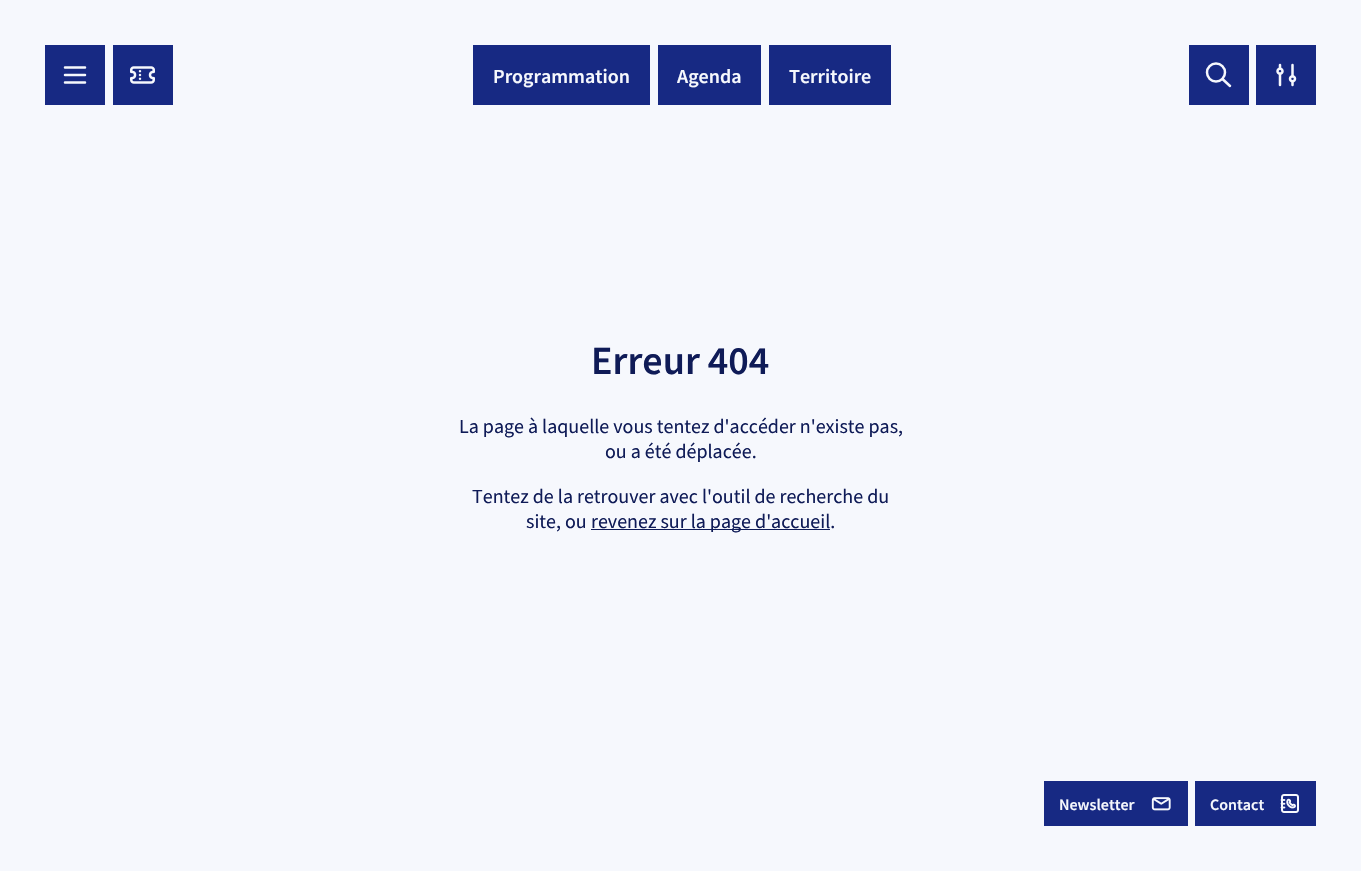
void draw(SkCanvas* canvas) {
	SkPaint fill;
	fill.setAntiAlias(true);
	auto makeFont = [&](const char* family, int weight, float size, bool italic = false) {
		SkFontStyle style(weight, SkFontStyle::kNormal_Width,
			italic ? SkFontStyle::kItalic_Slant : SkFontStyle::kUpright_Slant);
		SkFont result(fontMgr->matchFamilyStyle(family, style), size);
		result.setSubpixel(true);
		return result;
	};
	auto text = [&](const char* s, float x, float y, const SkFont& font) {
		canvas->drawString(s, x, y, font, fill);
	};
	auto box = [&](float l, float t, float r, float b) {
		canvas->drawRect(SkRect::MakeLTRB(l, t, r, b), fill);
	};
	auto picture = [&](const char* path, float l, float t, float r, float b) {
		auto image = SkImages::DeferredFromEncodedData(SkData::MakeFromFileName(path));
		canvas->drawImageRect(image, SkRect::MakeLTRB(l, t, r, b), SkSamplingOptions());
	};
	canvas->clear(0xFFF6F8FD);
	fill.setColor(0xFF172983);
	box(45, 45, 105, 105);
	fill.setStyle(SkPaint::kStroke_Style);
	fill.setStrokeWidth(2.5f);
	fill.setStrokeCap(SkPaint::kRound_Cap);
	fill.setStrokeJoin(SkPaint::kRound_Join);
	fill.setColor(0xFFF6F8FD);
	canvas->drawPath(SkPathBuilder().moveTo(65, 67.5f).lineTo(85, 67.5f).moveTo(65, 75).lineTo(85, 75).moveTo(65, 82.5f).lineTo(85, 82.5f).detach(), fill);
	fill.setStyle(SkPaint::kFill_Style);
	fill.setColor(0xFF172983);
	box(113, 45, 173, 105);
	picture("image0.png", 130, 66, 155, 84);
	box(473, 45, 650, 105);
	box(658, 45, 761, 105);
	box(769, 45, 891, 105);
	box(1189, 45, 1249, 105);
	fill.setStyle(SkPaint::kStroke_Style);
	fill.setStrokeCap(SkPaint::kButt_Cap);
	fill.setStrokeJoin(SkPaint::kMiter_Join);
	fill.setColor(0xFFF6F8FD);
	canvas->drawCircle(1216, 72.5f, 9, fill);
	fill.setStrokeCap(SkPaint::kRound_Cap);
	fill.setStrokeJoin(SkPaint::kRound_Join);
	canvas->drawPath(SkPathBuilder().moveTo(1230, 86).lineTo(1222.5f, 79).detach(), fill);
	fill.setStyle(SkPaint::kFill_Style);
	fill.setColor(0xFF172983);
	box(1256, 45, 1316, 105);
	picture("image1.png", 1276, 63, 1297, 87);
	fill.setColor(0xFF0F1B57);
	box(591, 529, 830, 530);
	fill.setColor(0xFF172983);
	box(1044, 781, 1188, 826);
	picture("image2.png", 1151, 797, 1171, 811);
	box(1195, 781, 1316, 826);
	picture("image3.png", 1280, 794, 1299, 813);
	auto font1 = makeFont("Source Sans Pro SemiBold", 600, 20);
	fill.setColor(0xFFF6F8FD);
	text("Programmation", 493, 83, font1);
	text("Agenda", 677, 83, font1);
	text("Territoire", 789, 83, font1);
	auto font2 = makeFont("Source Sans Pro SemiBold", 600, 40);
	fill.setColor(0xFF0F1B57);
	text("Erreur 404", 591, 374, font2);
	auto font3 = makeFont("Source Sans Pro", 400, 20);
	text("La page à laquelle vous tentez d'accéder n'existe pas,", 459, 433, font3);
	text("ou a été déplacée.", 605, 458, font3);
	text("Tentez de la retrouver avec l'outil de recherche du", 472, 503, font3);
	text("site, ou", 526, 528, font3);
	text("revenez sur la page d'accueil.", 591, 528, font3);
	auto font4 = makeFont("Source Sans Pro SemiBold", 600, 16);
	fill.setColor(0xFFF6F8FD);
	text("Newsletter", 1059, 810, font4);
	text("Contact", 1210, 810, font4);
}
